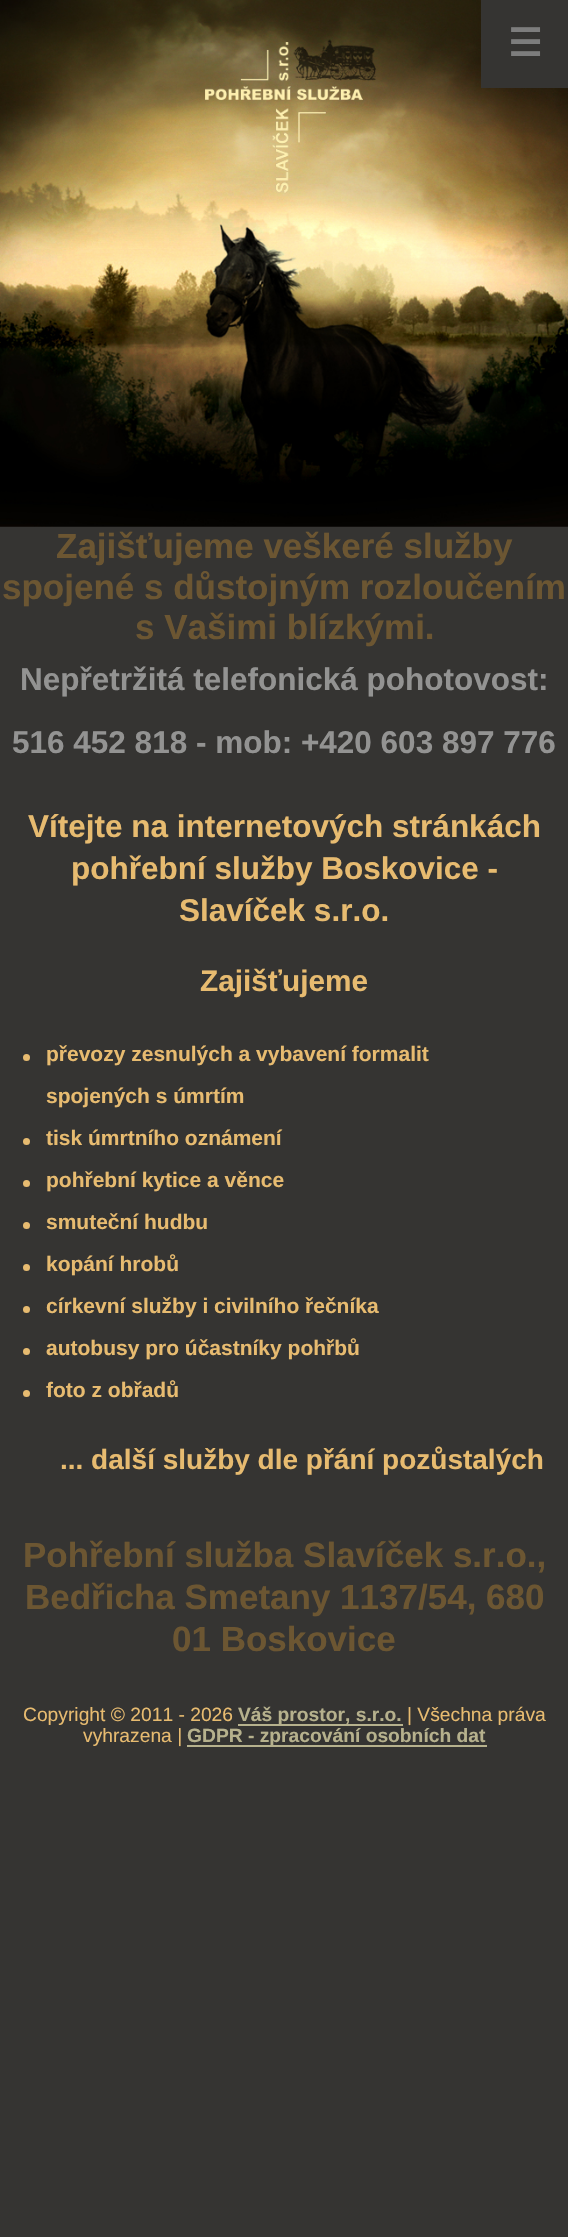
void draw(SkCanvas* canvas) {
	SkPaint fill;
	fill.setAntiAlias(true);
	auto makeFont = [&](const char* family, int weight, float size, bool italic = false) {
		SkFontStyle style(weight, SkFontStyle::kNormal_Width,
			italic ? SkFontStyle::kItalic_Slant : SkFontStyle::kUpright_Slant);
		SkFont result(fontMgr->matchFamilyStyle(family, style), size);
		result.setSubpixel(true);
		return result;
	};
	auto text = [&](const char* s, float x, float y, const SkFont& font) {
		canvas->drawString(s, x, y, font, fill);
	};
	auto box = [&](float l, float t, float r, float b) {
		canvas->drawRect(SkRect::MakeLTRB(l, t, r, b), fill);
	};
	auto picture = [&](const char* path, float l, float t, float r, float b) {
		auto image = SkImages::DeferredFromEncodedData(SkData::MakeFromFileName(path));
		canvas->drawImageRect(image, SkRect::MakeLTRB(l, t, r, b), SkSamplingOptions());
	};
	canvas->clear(0xFF353432);
	picture("image0.png", 0, 0, 568, 527);
	fill.setColor(0xFF353432);
	box(481, 0, 568, 88);
	fill.setColor(0xFFE7BB70);
	canvas->drawCircle(26.5f, 1057.5f, 3.5f, fill);
	canvas->drawCircle(26.5f, 1141.5f, 3.5f, fill);
	canvas->drawCircle(26.5f, 1183.5f, 3.5f, fill);
	canvas->drawCircle(26.5f, 1225.5f, 3.5f, fill);
	canvas->drawCircle(26.5f, 1267.5f, 3.5f, fill);
	canvas->drawCircle(26.5f, 1309.5f, 3.5f, fill);
	canvas->drawCircle(26.5f, 1351.5f, 3.5f, fill);
	canvas->drawCircle(26.5f, 1393.5f, 3.5f, fill);
	fill.setColor(0xFFB6B18D);
	box(238, 1724, 403, 1726);
	box(187, 1745, 487, 1747);
	auto font1 = makeFont("DejaVu Sans", 700, 38);
	fill.setColor(0xFF7D7D7D);
	text("☰", 508, 56, font1);
	auto font2 = makeFont("Liberation Sans", 700, 35);
	fill.setColor(0xFF6C5632);
	text("Zajišťujeme veškeré služby", 56, 558, font2);
	text("spojené s důstojným rozloučením", 2, 599, font2);
	text("s Vašimi blízkými.", 135, 639, font2);
	auto font3 = makeFont("Liberation Sans", 700, 31.5f);
	fill.setColor(0xFF939392);
	text("Nepřetržitá telefonická pohotovost:", 20, 690, font3);
	text("516 452 818 - mob: +420 603 897 776", 12, 753, font3);
	fill.setColor(0xFFE7BB70);
	text("Vítejte na internetových stránkách", 28, 837, font3);
	text("pohřební služby Boskovice -", 71, 879, font3);
	text("Slavíček s.r.o.", 179, 921, font3);
	auto font4 = makeFont("Liberation Sans", 700, 29.75f);
	text("Zajišťujeme", 200, 991, font4);
	auto font5 = makeFont("Liberation Sans", 700, 21);
	text("převozy zesnulých a vybavení formalit", 46, 1061, font5);
	text("spojených s úmrtím", 46, 1103, font5);
	text("tisk úmrtního oznámení", 46, 1145, font5);
	text("pohřební kytice a věnce", 46, 1187, font5);
	text("smuteční hudbu", 46, 1229, font5);
	text("kopání hrobů", 46, 1271, font5);
	text("církevní služby i civilního řečníka", 46, 1313, font5);
	text("autobusy pro účastníky pohřbů", 46, 1355, font5);
	text("foto z obřadů", 46, 1397, font5);
	auto font6 = makeFont("Liberation Sans", 700, 28);
	text("... další služby dle přání pozůstalých", 60, 1469, font6);
	fill.setColor(0xFF6C5632);
	text("Pohřební služba Slavíček s.r.o.,", 23, 1567, font2);
	text("Bedřicha Smetany 1137/54, 680", 25, 1609, font2);
	text("01 Boskovice", 172, 1651, font2);
	auto font7 = makeFont("Liberation Sans", 400, 19.25f);
	fill.setColor(0xFFE7BB70);
	text("Copyright © 2011 - 2026", 23, 1721, font7);
	auto font8 = makeFont("Liberation Sans", 700, 19.25f);
	fill.setColor(0xFFB6B18D);
	text("Váš prostor, s.r.o.", 238, 1721, font8);
	fill.setColor(0xFFE7BB70);
	text("| Všechna práva", 407, 1721, font7);
	text("vyhrazena |", 83, 1742, font7);
	fill.setColor(0xFFB6B18D);
	text("GDPR - zpracování osobních dat", 187, 1742, font8);
}
